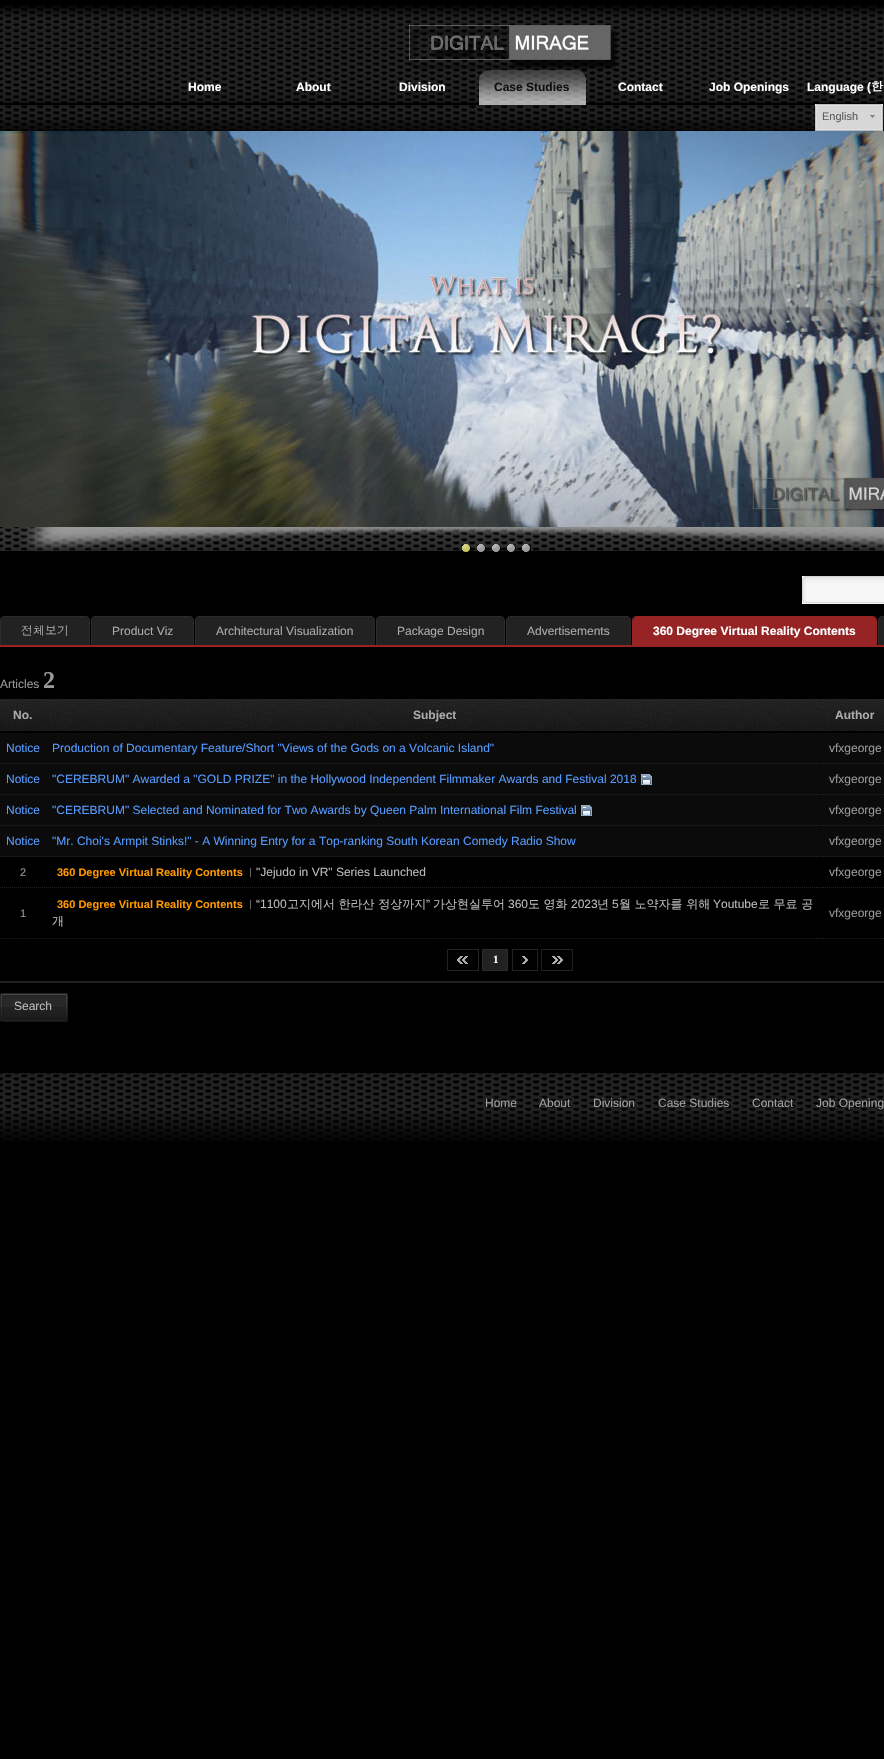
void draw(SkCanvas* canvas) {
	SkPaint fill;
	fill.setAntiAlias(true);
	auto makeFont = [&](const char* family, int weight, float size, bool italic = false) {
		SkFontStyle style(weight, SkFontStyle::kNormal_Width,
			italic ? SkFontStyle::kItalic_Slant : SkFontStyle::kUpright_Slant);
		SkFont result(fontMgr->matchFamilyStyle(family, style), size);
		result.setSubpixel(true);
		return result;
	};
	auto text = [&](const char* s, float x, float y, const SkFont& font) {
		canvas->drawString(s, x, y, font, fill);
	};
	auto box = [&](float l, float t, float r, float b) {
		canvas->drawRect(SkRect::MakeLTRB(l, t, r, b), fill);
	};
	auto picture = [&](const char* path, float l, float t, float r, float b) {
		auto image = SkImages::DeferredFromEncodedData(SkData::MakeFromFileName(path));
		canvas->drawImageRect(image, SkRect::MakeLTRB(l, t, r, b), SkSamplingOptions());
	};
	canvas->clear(0xFF000000);
	picture("image0.png", 0, 5, 884, 103);
	picture("image1.png", 409, 25, 618, 70);
	picture("image2.png", 479, 70, 586, 105);
	picture("image4.png", 0, 105, 884, 551);
	picture("image3.png", 815, 104, 883, 131);
	picture("image5.png", 0, 131, 884, 527);
	picture("image11.png", 22, 527, 884, 552);
	picture("image6.png", 462, 544, 471, 552);
	picture("image7.png", 477, 544, 486, 552);
	picture("image8.png", 492, 544, 501, 552);
	picture("image9.png", 507, 544, 516, 552);
	picture("image10.png", 522, 544, 531, 552);
	picture("image12.png", 802, 576, 884, 604);
	fill.setColor(0xFF962424);
	box(0, 645, 884, 647);
	fill.setColor(0xFF222222);
	canvas->drawPath(SkPathBuilder().moveTo(5, 617).lineTo(85, 617).cubicTo(87, 617, 89, 619, 89, 621).lineTo(89, 645).lineTo(1, 645).lineTo(1, 621).cubicTo(1, 619, 3, 617, 5, 617).close().detach(), fill);
	fill.setColor(0xFF2B2B2B);
	canvas->drawPath(SkPathBuilder(SkPathFillType::kEvenOdd).moveTo(5, 616).lineTo(85, 616).cubicTo(88, 616, 90, 618, 90, 621).lineTo(90, 645).lineTo(0, 645).lineTo(0, 621).cubicTo(0, 618, 2, 616, 5, 616).close().moveTo(5, 617).lineTo(85, 617).cubicTo(87, 617, 89, 619, 89, 621).lineTo(89, 645).lineTo(1, 645).lineTo(1, 621).cubicTo(1, 619, 3, 617, 5, 617).close().detach(), fill);
	fill.setColor(0xFF222222);
	canvas->drawPath(SkPathBuilder().moveTo(96, 617).lineTo(189, 617).cubicTo(191, 617, 193, 619, 193, 621).lineTo(193, 645).lineTo(92, 645).lineTo(92, 621).cubicTo(92, 619, 94, 617, 96, 617).close().detach(), fill);
	fill.setColor(0xFF2B2B2B);
	canvas->drawPath(SkPathBuilder(SkPathFillType::kEvenOdd).moveTo(96, 616).lineTo(189, 616).cubicTo(192, 616, 194, 618, 194, 621).lineTo(194, 645).lineTo(91, 645).lineTo(91, 621).cubicTo(91, 618, 93, 616, 96, 616).close().moveTo(96, 617).lineTo(189, 617).cubicTo(191, 617, 193, 619, 193, 621).lineTo(193, 645).lineTo(92, 645).lineTo(92, 621).cubicTo(92, 619, 94, 617, 96, 617).close().detach(), fill);
	fill.setColor(0xFF222222);
	canvas->drawPath(SkPathBuilder().moveTo(200, 617).lineTo(370, 617).cubicTo(372, 617, 374, 619, 374, 621).lineTo(374, 645).lineTo(196, 645).lineTo(196, 621).cubicTo(196, 619, 198, 617, 200, 617).close().detach(), fill);
	fill.setColor(0xFF2B2B2B);
	canvas->drawPath(SkPathBuilder(SkPathFillType::kEvenOdd).moveTo(200, 616).lineTo(370, 616).cubicTo(373, 616, 375, 618, 375, 621).lineTo(375, 645).lineTo(195, 645).lineTo(195, 621).cubicTo(195, 618, 197, 616, 200, 616).close().moveTo(200, 617).lineTo(370, 617).cubicTo(372, 617, 374, 619, 374, 621).lineTo(374, 645).lineTo(196, 645).lineTo(196, 621).cubicTo(196, 619, 198, 617, 200, 617).close().detach(), fill);
	fill.setColor(0xFF222222);
	canvas->drawPath(SkPathBuilder().moveTo(381, 617).lineTo(500, 617).cubicTo(502, 617, 504, 619, 504, 621).lineTo(504, 645).lineTo(377, 645).lineTo(377, 621).cubicTo(377, 619, 379, 617, 381, 617).close().detach(), fill);
	fill.setColor(0xFF2B2B2B);
	canvas->drawPath(SkPathBuilder(SkPathFillType::kEvenOdd).moveTo(381, 616).lineTo(500, 616).cubicTo(503, 616, 505, 618, 505, 621).lineTo(505, 645).lineTo(376, 645).lineTo(376, 621).cubicTo(376, 618, 378, 616, 381, 616).close().moveTo(381, 617).lineTo(500, 617).cubicTo(502, 617, 504, 619, 504, 621).lineTo(504, 645).lineTo(377, 645).lineTo(377, 621).cubicTo(377, 619, 379, 617, 381, 617).close().detach(), fill);
	fill.setColor(0xFF222222);
	canvas->drawPath(SkPathBuilder().moveTo(511, 617).lineTo(626, 617).cubicTo(628, 617, 630, 619, 630, 621).lineTo(630, 645).lineTo(507, 645).lineTo(507, 621).cubicTo(507, 619, 509, 617, 511, 617).close().detach(), fill);
	fill.setColor(0xFF2B2B2B);
	canvas->drawPath(SkPathBuilder(SkPathFillType::kEvenOdd).moveTo(511, 616).lineTo(626, 616).cubicTo(629, 616, 631, 618, 631, 621).lineTo(631, 645).lineTo(506, 645).lineTo(506, 621).cubicTo(506, 618, 508, 616, 511, 616).close().moveTo(511, 617).lineTo(626, 617).cubicTo(628, 617, 630, 619, 630, 621).lineTo(630, 645).lineTo(507, 645).lineTo(507, 621).cubicTo(507, 619, 509, 617, 511, 617).close().detach(), fill);
	fill.setColor(0xFF962424);
	canvas->drawPath(SkPathBuilder().moveTo(637, 617).lineTo(872, 617).cubicTo(874, 617, 876, 619, 876, 621).lineTo(876, 645).lineTo(633, 645).lineTo(633, 621).cubicTo(633, 619, 635, 617, 637, 617).close().detach(), fill);
	canvas->drawPath(SkPathBuilder(SkPathFillType::kEvenOdd).moveTo(637, 616).lineTo(872, 616).cubicTo(875, 616, 877, 618, 877, 621).lineTo(877, 645).lineTo(632, 645).lineTo(632, 621).cubicTo(632, 618, 634, 616, 637, 616).close().moveTo(637, 617).lineTo(872, 617).cubicTo(874, 617, 876, 619, 876, 621).lineTo(876, 645).lineTo(633, 645).lineTo(633, 621).cubicTo(633, 619, 635, 617, 637, 617).close().detach(), fill);
	fill.setColor(0xFF222222);
	canvas->drawPath(SkPathBuilder().moveTo(883, 617).lineTo(884, 617).cubicTo(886, 617, 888, 619, 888, 621).lineTo(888, 645).lineTo(879, 645).lineTo(879, 621).cubicTo(879, 619, 881, 617, 883, 617).close().detach(), fill);
	fill.setColor(0xFF2B2B2B);
	canvas->drawPath(SkPathBuilder(SkPathFillType::kEvenOdd).moveTo(883, 616).lineTo(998, 616).cubicTo(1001, 616, 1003, 618, 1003, 621).lineTo(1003, 645).lineTo(878, 645).lineTo(878, 621).cubicTo(878, 618, 880, 616, 883, 616).close().moveTo(883, 617).lineTo(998, 617).cubicTo(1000, 617, 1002, 619, 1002, 621).lineTo(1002, 645).lineTo(879, 645).lineTo(879, 621).cubicTo(879, 619, 881, 617, 883, 617).close().detach(), fill);
	picture("image13.png", 0, 699, 46, 731);
	picture("image14.png", 46, 699, 823, 731);
	picture("image15.png", 823, 699, 884, 731);
	fill.setColor(0xFF0B0B0B);
	box(0, 733, 884, 857);
	fill.setStyle(SkPaint::kStroke_Style);
	fill.setStrokeWidth(1);
	fill.setColor(0xFF222222);
	fill.setPathEffect(SkDashPathEffect::Make({{1, 1}}, 0));
	canvas->drawPath(SkPathBuilder().moveTo(0, 763.5f).lineTo(46, 763.5f).detach(), fill);
	fill.setPathEffect(nullptr);
	fill.setPathEffect(SkDashPathEffect::Make({{1, 1}}, 0));
	canvas->drawPath(SkPathBuilder().moveTo(46, 763.5f).lineTo(823, 763.5f).detach(), fill);
	fill.setPathEffect(nullptr);
	fill.setPathEffect(SkDashPathEffect::Make({{1, 1}}, 0));
	canvas->drawPath(SkPathBuilder().moveTo(823, 763.5f).lineTo(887, 763.5f).detach(), fill);
	fill.setPathEffect(nullptr);
	fill.setPathEffect(SkDashPathEffect::Make({{1, 1}}, 0));
	canvas->drawPath(SkPathBuilder().moveTo(0, 794.5f).lineTo(46, 794.5f).detach(), fill);
	fill.setPathEffect(nullptr);
	fill.setPathEffect(SkDashPathEffect::Make({{1, 1}}, 0));
	canvas->drawPath(SkPathBuilder().moveTo(46, 794.5f).lineTo(823, 794.5f).detach(), fill);
	fill.setPathEffect(nullptr);
	picture("image16.png", 641, 774, 652, 785);
	fill.setPathEffect(SkDashPathEffect::Make({{1, 1}}, 0));
	canvas->drawPath(SkPathBuilder().moveTo(823, 794.5f).lineTo(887, 794.5f).detach(), fill);
	fill.setPathEffect(nullptr);
	fill.setPathEffect(SkDashPathEffect::Make({{1, 1}}, 0));
	canvas->drawPath(SkPathBuilder().moveTo(0, 825.5f).lineTo(46, 825.5f).detach(), fill);
	fill.setPathEffect(nullptr);
	fill.setPathEffect(SkDashPathEffect::Make({{1, 1}}, 0));
	canvas->drawPath(SkPathBuilder().moveTo(46, 825.5f).lineTo(823, 825.5f).detach(), fill);
	fill.setPathEffect(nullptr);
	picture("image16.png", 581, 805, 592, 816);
	fill.setPathEffect(SkDashPathEffect::Make({{1, 1}}, 0));
	canvas->drawPath(SkPathBuilder().moveTo(823, 825.5f).lineTo(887, 825.5f).detach(), fill);
	fill.setPathEffect(nullptr);
	fill.setPathEffect(SkDashPathEffect::Make({{1, 1}}, 0));
	canvas->drawPath(SkPathBuilder().moveTo(0, 856.5f).lineTo(46, 856.5f).detach(), fill);
	fill.setPathEffect(nullptr);
	fill.setPathEffect(SkDashPathEffect::Make({{1, 1}}, 0));
	canvas->drawPath(SkPathBuilder().moveTo(46, 856.5f).lineTo(823, 856.5f).detach(), fill);
	fill.setPathEffect(nullptr);
	fill.setPathEffect(SkDashPathEffect::Make({{1, 1}}, 0));
	canvas->drawPath(SkPathBuilder().moveTo(823, 856.5f).lineTo(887, 856.5f).detach(), fill);
	fill.setPathEffect(nullptr);
	fill.setPathEffect(SkDashPathEffect::Make({{1, 1}}, 0));
	canvas->drawPath(SkPathBuilder().moveTo(0, 887.5f).lineTo(46, 887.5f).detach(), fill);
	fill.setPathEffect(nullptr);
	fill.setPathEffect(SkDashPathEffect::Make({{1, 1}}, 0));
	canvas->drawPath(SkPathBuilder().moveTo(46, 887.5f).lineTo(823, 887.5f).detach(), fill);
	fill.setPathEffect(nullptr);
	fill.setStyle(SkPaint::kFill_Style);
	fill.setColor(0xFF666666);
	box(250, 868, 251, 877);
	fill.setStyle(SkPaint::kStroke_Style);
	fill.setColor(0xFF222222);
	fill.setPathEffect(SkDashPathEffect::Make({{1, 1}}, 0));
	canvas->drawPath(SkPathBuilder().moveTo(823, 887.5f).lineTo(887, 887.5f).detach(), fill);
	fill.setPathEffect(nullptr);
	fill.setPathEffect(SkDashPathEffect::Make({{1, 1}}, 0));
	canvas->drawPath(SkPathBuilder().moveTo(0, 938.5f).lineTo(46, 938.5f).detach(), fill);
	fill.setPathEffect(nullptr);
	fill.setPathEffect(SkDashPathEffect::Make({{1, 1}}, 0));
	canvas->drawPath(SkPathBuilder().moveTo(46, 938.5f).lineTo(823, 938.5f).detach(), fill);
	fill.setPathEffect(nullptr);
	fill.setStyle(SkPaint::kFill_Style);
	fill.setColor(0xFF666666);
	box(250, 900, 251, 909);
	fill.setStyle(SkPaint::kStroke_Style);
	fill.setColor(0xFF222222);
	fill.setPathEffect(SkDashPathEffect::Make({{1, 1}}, 0));
	canvas->drawPath(SkPathBuilder().moveTo(823, 938.5f).lineTo(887, 938.5f).detach(), fill);
	fill.setPathEffect(nullptr);
	picture("image17.png", 457, 956, 468, 964);
	canvas->drawRect(SkRect::MakeLTRB(447.5f, 949.5f, 478.5f, 970.5f), fill);
	fill.setStyle(SkPaint::kFill_Style);
	canvas->drawRect(SkRect::MakeLTRB(482.5f, 949.5f, 507.5f, 970.5f), fill);
	fill.setStyle(SkPaint::kStroke_Style);
	fill.setColor(0xFF2B2B2B);
	canvas->drawRect(SkRect::MakeLTRB(482.5f, 949.5f, 507.5f, 970.5f), fill);
	picture("image18.png", 522, 956, 528, 964);
	fill.setColor(0xFF222222);
	canvas->drawRect(SkRect::MakeLTRB(512.5f, 949.5f, 537.5f, 970.5f), fill);
	picture("image19.png", 552, 956, 563, 964);
	canvas->drawRect(SkRect::MakeLTRB(541.5f, 949.5f, 572.5f, 970.5f), fill);
	fill.setStyle(SkPaint::kFill_Style);
	box(0, 981, 884, 983);
	picture("image20.png", 0, 993, 64, 1022);
	picture("image21.png", 64, 993, 68, 1022);
	picture("image22.png", 0, 1073, 884, 1142);
	auto font1 = makeFont("Liberation Sans", 700, 12);
	fill.setColor(0xFFFFFFFF);
	text("Home", 188, 91, font1);
	text("About", 296, 91, font1);
	text("Division", 399, 91, font1);
	fill.setColor(0xFF0F0F0F);
	text("Case Studies", 494, 91, font1);
	fill.setColor(0xFFFFFFFF);
	text("Contact", 618, 91, font1);
	text("Job Openings", 709, 91, font1);
	text("Language (", 807, 91, font1);
	auto font2 = makeFont("Dotum", 700, 12);
	text("한", 871, 91, font2);
	auto font3 = makeFont("Liberation Sans", 400, 11);
	fill.setColor(0xFF5A5A5A);
	text("English", 822, 120, font3);
	auto font4 = makeFont("Dotum", 400, 12);
	fill.setColor(0xFFAAAAAA);
	text("전체보기", 21, 635, font4);
	auto font5 = makeFont("Liberation Sans", 400, 12);
	text("Product Viz", 112, 635, font5);
	text("Architectural Visualization", 216, 635, font5);
	text("Package Design", 397, 635, font5);
	text("Advertisements", 527, 635, font5);
	fill.setColor(0xFFFFFFFF);
	text("360 Degree Virtual Reality Contents", 653, 635, font1);
	fill.setColor(0xFF999999);
	text("Articles", 0, 688, font5);
	auto font6 = makeFont("Liberation Serif", 700, 24);
	text("2", 43, 688, font6);
	fill.setColor(0xFFAAAAAA);
	text("No.", 13, 719, font1);
	text("Subject", 413, 719, font1);
	text("Author", 835, 719, font1);
	fill.setColor(0xFF559BFF);
	text("Notice", 6, 752, font5);
	text("Production of Documentary Feature/Short \"Views of the Gods on a Volcanic Island\"", 52, 752, font5);
	fill.setColor(0xFF999999);
	text("vfxgeorge", 829, 752, font5);
	fill.setColor(0xFF559BFF);
	text("Notice", 6, 783, font5);
	text("\"CEREBRUM\" Awarded a \"GOLD PRIZE\" in the Hollywood Independent Filmmaker Awards and Festival 2018", 52, 783, font5);
	fill.setColor(0xFF999999);
	text("vfxgeorge", 829, 783, font5);
	fill.setColor(0xFF559BFF);
	text("Notice", 6, 814, font5);
	text("\"CEREBRUM\" Selected and Nominated for Two Awards by Queen Palm International Film Festival", 52, 814, font5);
	fill.setColor(0xFF999999);
	text("vfxgeorge", 829, 814, font5);
	fill.setColor(0xFF559BFF);
	text("Notice", 6, 845, font5);
	text("\"Mr. Choi's Armpit Stinks!\" - A Winning Entry for a Top-ranking South Korean Comedy Radio Show", 52, 845, font5);
	fill.setColor(0xFF999999);
	text("vfxgeorge", 829, 845, font5);
	text("2", 20, 876, font3);
	auto font7 = makeFont("Liberation Sans", 700, 11);
	fill.setColor(0xFFFF9900);
	text("360 Degree Virtual Reality Contents", 57, 876, font7);
	fill.setColor(0xFFBBBBBB);
	text("\"Jejudo in VR\" Series Launched", 256, 876, font5);
	fill.setColor(0xFF999999);
	text("vfxgeorge", 829, 876, font5);
	text("1", 20, 917, font3);
	fill.setColor(0xFFFF9900);
	text("360 Degree Virtual Reality Contents", 57, 908, font7);
	fill.setColor(0xFFBBBBBB);
	text("“1100", 256, 908, font5);
	auto font8 = makeFont("WenQuanYi Zen Hei", 500, 12);
	text("고지에서 한라산 정상까지", 287, 908, font8);
	text("”", 426, 908, font5);
	text("가상현실투어", 433, 908, font8);
	text("360", 508, 908, font5);
	text("도 영화", 528, 908, font8);
	text("2023", 571, 908, font5);
	text("년", 597, 908, font8);
	text("5", 612, 908, font5);
	text("월 노약자를 위해", 619, 908, font8);
	text("Youtube", 713, 908, font5);
	text("로 무료 공", 758, 908, font8);
	text("개", 52, 925, font8);
	fill.setColor(0xFF999999);
	text("vfxgeorge", 829, 917, font5);
	auto font9 = makeFont("Liberation Serif", 700, 11);
	fill.setColor(0xFFFFFFFF);
	text("1", 493, 963, font9);
	fill.setColor(0xFFBBBBBB);
	text("Search", 14, 1010, font5);
	fill.setColor(0xFF9FA09F);
	text("Home", 485, 1107, font5);
	text("About", 539, 1107, font5);
	text("Division", 593, 1107, font5);
	text("Case Studies", 658, 1107, font5);
	text("Contact", 752, 1107, font5);
	text("Job Opening", 816, 1107, font5);
}
